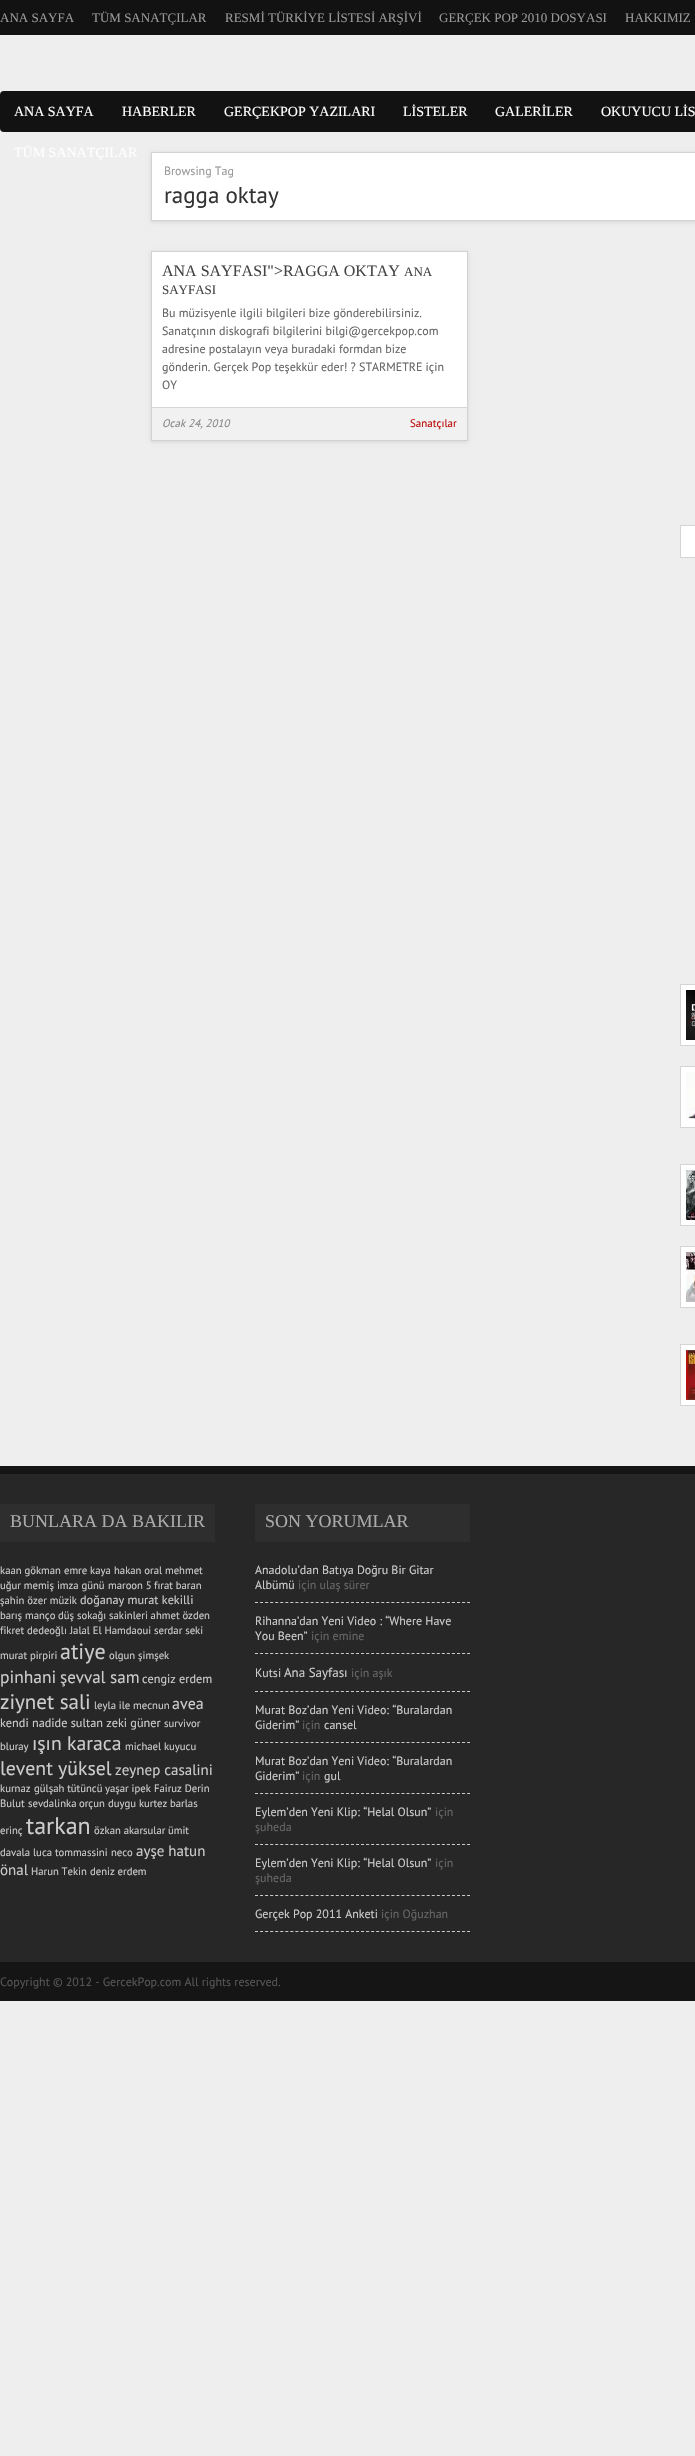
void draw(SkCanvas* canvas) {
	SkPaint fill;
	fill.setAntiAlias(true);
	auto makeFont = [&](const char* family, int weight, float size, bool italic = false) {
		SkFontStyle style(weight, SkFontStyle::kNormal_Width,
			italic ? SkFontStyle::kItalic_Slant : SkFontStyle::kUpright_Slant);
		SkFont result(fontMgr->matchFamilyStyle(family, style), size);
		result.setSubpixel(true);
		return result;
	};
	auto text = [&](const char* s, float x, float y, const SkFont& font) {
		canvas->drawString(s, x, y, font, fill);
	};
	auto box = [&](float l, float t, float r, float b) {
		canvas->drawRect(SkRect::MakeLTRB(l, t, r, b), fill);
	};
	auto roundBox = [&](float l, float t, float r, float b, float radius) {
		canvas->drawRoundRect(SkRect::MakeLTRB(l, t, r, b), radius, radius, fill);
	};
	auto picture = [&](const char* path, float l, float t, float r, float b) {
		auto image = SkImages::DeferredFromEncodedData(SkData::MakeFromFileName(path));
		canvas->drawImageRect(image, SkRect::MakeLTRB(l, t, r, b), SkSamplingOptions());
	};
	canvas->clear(0xFFEEEEEE);
	fill.setColor(0xFF121212);
	box(0, 0, 695, 35);
	roundBox(0, 91, 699, 132, 4);
	fill.setColor(0x1A000000);
	fill.setMaskFilter(SkMaskFilter::MakeBlur(kNormal_SkBlurStyle, 2));
	canvas->drawRect(SkRect::MakeLTRB(151, 153, 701, 222), fill);
	fill.setMaskFilter(nullptr);
	fill.setColor(0xFFFFFFFF);
	canvas->drawRect(SkRect::MakeLTRB(151.5f, 152.5f, 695.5f, 220.5f), fill);
	fill.setStyle(SkPaint::kStroke_Style);
	fill.setStrokeWidth(1);
	fill.setColor(0xFFD2D2D2);
	canvas->drawRect(SkRect::MakeLTRB(151.5f, 152.5f, 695.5f, 220.5f), fill);
	fill.setStyle(SkPaint::kFill_Style);
	fill.setColor(0x1A000000);
	fill.setMaskFilter(SkMaskFilter::MakeBlur(kNormal_SkBlurStyle, 2));
	canvas->drawRect(SkRect::MakeLTRB(151, 252, 468, 442), fill);
	fill.setMaskFilter(nullptr);
	fill.setColor(0xFFFFFFFF);
	box(152, 252, 467, 407);
	fill.setStyle(SkPaint::kStroke_Style);
	fill.setColor(0xFFD2D2D2);
	canvas->drawRect(SkRect::MakeLTRB(151.5f, 251.5f, 467.5f, 440.5f), fill);
	fill.setStyle(SkPaint::kFill_Style);
	fill.setColor(0xFFF1F1F1);
	box(152, 408, 467, 440);
	fill.setColor(0xFFD7D7D7);
	box(152, 407, 467, 408);
	fill.setColor(0xFFFFFFFF);
	canvas->drawRect(SkRect::MakeLTRB(680.5f, 525.5f, 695.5f, 557.5f), fill);
	fill.setStyle(SkPaint::kStroke_Style);
	fill.setColor(0xFFD5D5D5);
	canvas->drawRect(SkRect::MakeLTRB(680.5f, 525.5f, 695.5f, 557.5f), fill);
	fill.setStyle(SkPaint::kFill_Style);
	fill.setColor(0xFFFFFFFF);
	canvas->drawRect(SkRect::MakeLTRB(680.5f, 984.5f, 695.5f, 1045.5f), fill);
	fill.setStyle(SkPaint::kStroke_Style);
	fill.setColor(0xFFD5D5D5);
	canvas->drawRect(SkRect::MakeLTRB(680.5f, 984.5f, 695.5f, 1045.5f), fill);
	picture("image0.png", 686, 990, 695, 1040);
	fill.setStyle(SkPaint::kFill_Style);
	fill.setColor(0xFFFFFFFF);
	canvas->drawRect(SkRect::MakeLTRB(680.5f, 1066.5f, 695.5f, 1127.5f), fill);
	fill.setStyle(SkPaint::kStroke_Style);
	fill.setColor(0xFFD5D5D5);
	canvas->drawRect(SkRect::MakeLTRB(680.5f, 1066.5f, 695.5f, 1127.5f), fill);
	picture("image1.png", 686, 1072, 695, 1120);
	fill.setStyle(SkPaint::kFill_Style);
	fill.setColor(0xFFFFFFFF);
	canvas->drawRect(SkRect::MakeLTRB(680.5f, 1164.5f, 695.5f, 1225.5f), fill);
	fill.setStyle(SkPaint::kStroke_Style);
	fill.setColor(0xFFD5D5D5);
	canvas->drawRect(SkRect::MakeLTRB(680.5f, 1164.5f, 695.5f, 1225.5f), fill);
	picture("image2.png", 686, 1170, 695, 1220);
	fill.setStyle(SkPaint::kFill_Style);
	fill.setColor(0xFFFFFFFF);
	canvas->drawRect(SkRect::MakeLTRB(680.5f, 1246.5f, 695.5f, 1307.5f), fill);
	fill.setStyle(SkPaint::kStroke_Style);
	fill.setColor(0xFFD5D5D5);
	canvas->drawRect(SkRect::MakeLTRB(680.5f, 1246.5f, 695.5f, 1307.5f), fill);
	picture("image3.png", 686, 1252, 695, 1302);
	fill.setStyle(SkPaint::kFill_Style);
	fill.setColor(0xFFFFFFFF);
	canvas->drawRect(SkRect::MakeLTRB(680.5f, 1344.5f, 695.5f, 1405.5f), fill);
	fill.setStyle(SkPaint::kStroke_Style);
	fill.setColor(0xFFD5D5D5);
	canvas->drawRect(SkRect::MakeLTRB(680.5f, 1344.5f, 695.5f, 1405.5f), fill);
	picture("image4.png", 686, 1350, 695, 1400);
	fill.setStyle(SkPaint::kFill_Style);
	fill.setColor(0xFF272727);
	box(0, 1474, 695, 1962);
	fill.setColor(0xFF151515);
	box(0, 1466, 695, 1474);
	fill.setColor(0xFF2E2E2E);
	box(0, 1504, 215, 1542);
	box(255, 1504, 470, 1542);
	fill.setStyle(SkPaint::kStroke_Style);
	fill.setColor(0xFFCCCCCC);
	fill.setPathEffect(SkDashPathEffect::Make({{3, 2.05f}}, 0));
	canvas->drawPath(SkPathBuilder().moveTo(255, 1602.5f).lineTo(470, 1602.5f).detach(), fill);
	fill.setPathEffect(nullptr);
	fill.setPathEffect(SkDashPathEffect::Make({{3, 2.05f}}, 0));
	canvas->drawPath(SkPathBuilder().moveTo(255, 1653.5f).lineTo(470, 1653.5f).detach(), fill);
	fill.setPathEffect(nullptr);
	fill.setPathEffect(SkDashPathEffect::Make({{3, 2.05f}}, 0));
	canvas->drawPath(SkPathBuilder().moveTo(255, 1691.5f).lineTo(470, 1691.5f).detach(), fill);
	fill.setPathEffect(nullptr);
	fill.setPathEffect(SkDashPathEffect::Make({{3, 2.05f}}, 0));
	canvas->drawPath(SkPathBuilder().moveTo(255, 1742.5f).lineTo(470, 1742.5f).detach(), fill);
	fill.setPathEffect(nullptr);
	fill.setPathEffect(SkDashPathEffect::Make({{3, 2.05f}}, 0));
	canvas->drawPath(SkPathBuilder().moveTo(255, 1793.5f).lineTo(470, 1793.5f).detach(), fill);
	fill.setPathEffect(nullptr);
	fill.setPathEffect(SkDashPathEffect::Make({{3, 2.05f}}, 0));
	canvas->drawPath(SkPathBuilder().moveTo(255, 1844.5f).lineTo(470, 1844.5f).detach(), fill);
	fill.setPathEffect(nullptr);
	fill.setPathEffect(SkDashPathEffect::Make({{3, 2.05f}}, 0));
	canvas->drawPath(SkPathBuilder().moveTo(255, 1895.5f).lineTo(470, 1895.5f).detach(), fill);
	fill.setPathEffect(nullptr);
	fill.setPathEffect(SkDashPathEffect::Make({{3, 2.05f}}, 0));
	canvas->drawPath(SkPathBuilder().moveTo(255, 1931.5f).lineTo(470, 1931.5f).detach(), fill);
	fill.setPathEffect(nullptr);
	fill.setStyle(SkPaint::kFill_Style);
	fill.setColor(0xFF151515);
	box(0, 1962, 695, 2001);
	auto font1 = makeFont("Liberation Serif", 400, 13);
	fill.setColor(0xFF999999);
	text("ANA SAYFA", 0, 22, font1);
	text("TÜM SANATÇILAR", 92, 22, font1);
	text("RESMİ TÜRKİYE LİSTESİ ARŞİVİ", 225, 22, font1);
	text("GERÇEK POP 2010 DOSYASI", 439, 22, font1);
	text("HAKKIMIZ", 625, 22, font1);
	auto font2 = makeFont("Liberation Serif", 400, 14);
	fill.setColor(0xFFFFFFFF);
	text("ANA SAYFA", 14, 116, font2);
	text("HABERLER", 122, 116, font2);
	text("GERÇEKPOP YAZILARI", 224, 116, font2);
	text("LİSTELER", 403, 116, font2);
	text("GALERİLER", 495, 116, font2);
	text("OKUYUCU LİS", 601, 116, font2);
	text("TÜM SANATÇILAR", 14, 157, font2);
	auto font3 = makeFont("PT Sans", 400, 12);
	fill.setColor(0xFF999999);
	text("Browsing Tag", 164, 175, font3);
	auto font4 = makeFont("PT Sans", 400, 23);
	fill.setColor(0xFF333333);
	text("ragga oktay", 164, 203, font4);
	auto font5 = makeFont("Liberation Serif", 400, 16);
	fill.setColor(0xFF444444);
	text("ANA SAYFASI\">RAGGA OKTAY", 162, 276, font5);
	text("ANA", 404, 276, font1);
	text("SAYFASI", 162, 294, font1);
	fill.setColor(0xFF666666);
	text("Bu müzisyenle ilgili bilgileri bize gönderebilirsiniz.", 162, 317, font3);
	text("Sanatçının diskografi bilgilerini bilgi@gercekpop.com", 162, 335, font3);
	text("adresine postalayın veya buradaki formdan bize", 162, 353, font3);
	text("gönderin. Gerçek Pop teşekkür eder! ? STARMETRE için", 162, 371, font3);
	text("OY", 162, 389, font3);
	auto font6 = makeFont("PT Sans", 400, 11, true);
	fill.setColor(0xFF888888);
	text("Ocak 24, 2010", 162, 427, font6);
	auto font7 = makeFont("PT Sans", 400, 11);
	fill.setColor(0xFFBC0C0C);
	text("Sanatçılar", 410, 427, font7);
	auto font8 = makeFont("Liberation Serif", 400, 18);
	fill.setColor(0xFFAAAAAA);
	text("BUNLARA DA BAKILIR", 10, 1527, font8);
	auto font9 = makeFont("PT Sans", 400, 10.7f);
	fill.setColor(0xFFCCCCCC);
	text("kaan gökman", 0, 1574, font9);
	text("emre kaya", 64, 1574, font9);
	text("hakan oral", 114, 1574, font9);
	text("mehmet", 165, 1574, font9);
	text("uğur memiş", 0, 1589, font9);
	text("imza günü", 57, 1589, font9);
	text("maroon 5", 108, 1589, font9);
	text("fırat baran", 154, 1589, font9);
	text("şahin özer müzik", 0, 1604, font9);
	auto font10 = makeFont("PT Sans", 400, 12.25f);
	text("doğanay murat kekilli", 80, 1604, font10);
	text("barış manço", 0, 1619, font9);
	text("düş sokağı sakinleri ahmet özden", 58, 1619, font9);
	text("fikret dedeoğlı", 0, 1634, font9);
	text("Jalal El Hamdaoui serdar seki", 70, 1634, font9);
	text("murat pirpiri", 0, 1659, font9);
	auto font11 = makeFont("PT Sans", 400, 22);
	text("atiye", 60, 1659, font11);
	text("olgun şimşek", 109, 1659, font9);
	auto font12 = makeFont("PT Sans", 400, 17.5f);
	text("pinhani", 0, 1683, font12);
	auto font13 = makeFont("PT Sans", 400, 17);
	text("şevval sam", 60, 1683, font13);
	text("cengiz erdem", 142, 1683, font10);
	auto font14 = makeFont("PT Sans", 400, 21);
	text("ziynet sali", 0, 1709, font14);
	text("leyla ile mecnun", 94, 1709, font9);
	auto font15 = makeFont("PT Sans", 400, 16);
	text("avea", 172, 1709, font15);
	text("kendi nadide sultan zeki güner", 0, 1727, font10);
	text("survivor", 164, 1727, font9);
	text("bluray", 0, 1750, font9);
	auto font16 = makeFont("PT Sans", 400, 19.75f);
	text("ışın karaca", 32, 1750, font16);
	text("michael kuyucu", 125, 1750, font9);
	text("levent yüksel", 0, 1775, font16);
	auto font17 = makeFont("PT Sans", 400, 15);
	text("zeynep casalini", 115, 1775, font17);
	text("kurnaz", 0, 1792, font9);
	text("gülşah tütüncü", 34, 1792, font9);
	text("yaşar ipek", 105, 1792, font9);
	text("Fairuz Derin", 154, 1792, font9);
	text("Bulut", 0, 1807, font9);
	text("sevdalinka", 28, 1807, font9);
	text("orçun", 79, 1807, font9);
	text("duygu kurtez", 108, 1807, font9);
	text("barlas", 170, 1807, font9);
	text("erinç", 0, 1834, font9);
	auto font18 = makeFont("PT Sans", 400, 24);
	text("tarkan", 26, 1834, font18);
	text("özkan akarsular", 94, 1834, font9);
	text("ümit", 168, 1834, font9);
	text("davala", 0, 1856, font9);
	text("luca tommassini", 33, 1856, font9);
	text("neco", 111, 1856, font9);
	text("ayşe hatun", 136, 1856, font17);
	text("önal", 0, 1875, font17);
	text("Harun Tekin", 31, 1875, font9);
	text("deniz erdem", 90, 1875, font9);
	fill.setColor(0xFFAAAAAA);
	text("SON YORUMLAR", 265, 1527, font8);
	fill.setColor(0xFFCCCCCC);
	text("Anadolu’dan Batıya Doğru Bir Gitar", 255, 1574, font3);
	text("Albümü", 255, 1589, font3);
	fill.setColor(0xFF666666);
	text("için ulaş sürer", 298, 1589, font3);
	fill.setColor(0xFFCCCCCC);
	text("Rihanna’dan Yeni Video : “Where Have", 255, 1625, font3);
	text("You Been”", 255, 1640, font3);
	fill.setColor(0xFF666666);
	text("için emine", 311, 1640, font3);
	fill.setColor(0xFFCCCCCC);
	text("Kutsi", 255, 1677, font3);
	auto font19 = makeFont("PT Sans", 400, 13);
	text("Ana Sayfası", 284, 1677, font19);
	fill.setColor(0xFF666666);
	text("için aşık", 351, 1677, font3);
	fill.setColor(0xFFCCCCCC);
	text("Murat Boz’dan Yeni Video: “Buralardan", 255, 1714, font3);
	text("Giderim”", 255, 1729, font3);
	fill.setColor(0xFF666666);
	text("için", 302, 1729, font3);
	fill.setColor(0xFFCCCCCC);
	text("cansel", 324, 1729, font3);
	text("Murat Boz’dan Yeni Video: “Buralardan", 255, 1765, font3);
	text("Giderim”", 255, 1780, font3);
	fill.setColor(0xFF666666);
	text("için", 302, 1780, font3);
	fill.setColor(0xFFCCCCCC);
	text("gul", 324, 1780, font3);
	text("Eylem’den Yeni Klip: “Helal Olsun”", 255, 1816, font3);
	fill.setColor(0xFF666666);
	text("için", 435, 1816, font3);
	text("şuheda", 255, 1831, font3);
	fill.setColor(0xFFCCCCCC);
	text("Eylem’den Yeni Klip: “Helal Olsun”", 255, 1867, font3);
	fill.setColor(0xFF666666);
	text("için", 435, 1867, font3);
	text("şuheda", 255, 1882, font3);
	fill.setColor(0xFFCCCCCC);
	text("Gerçek Pop 2011 Anketi", 255, 1918, font3);
	fill.setColor(0xFF666666);
	text("için Oğuzhan", 381, 1918, font3);
	fill.setColor(0xFF555555);
	text("Copyright © 2012 - GercekPop.com All rights reserved.", 0, 1986, font3);
}
